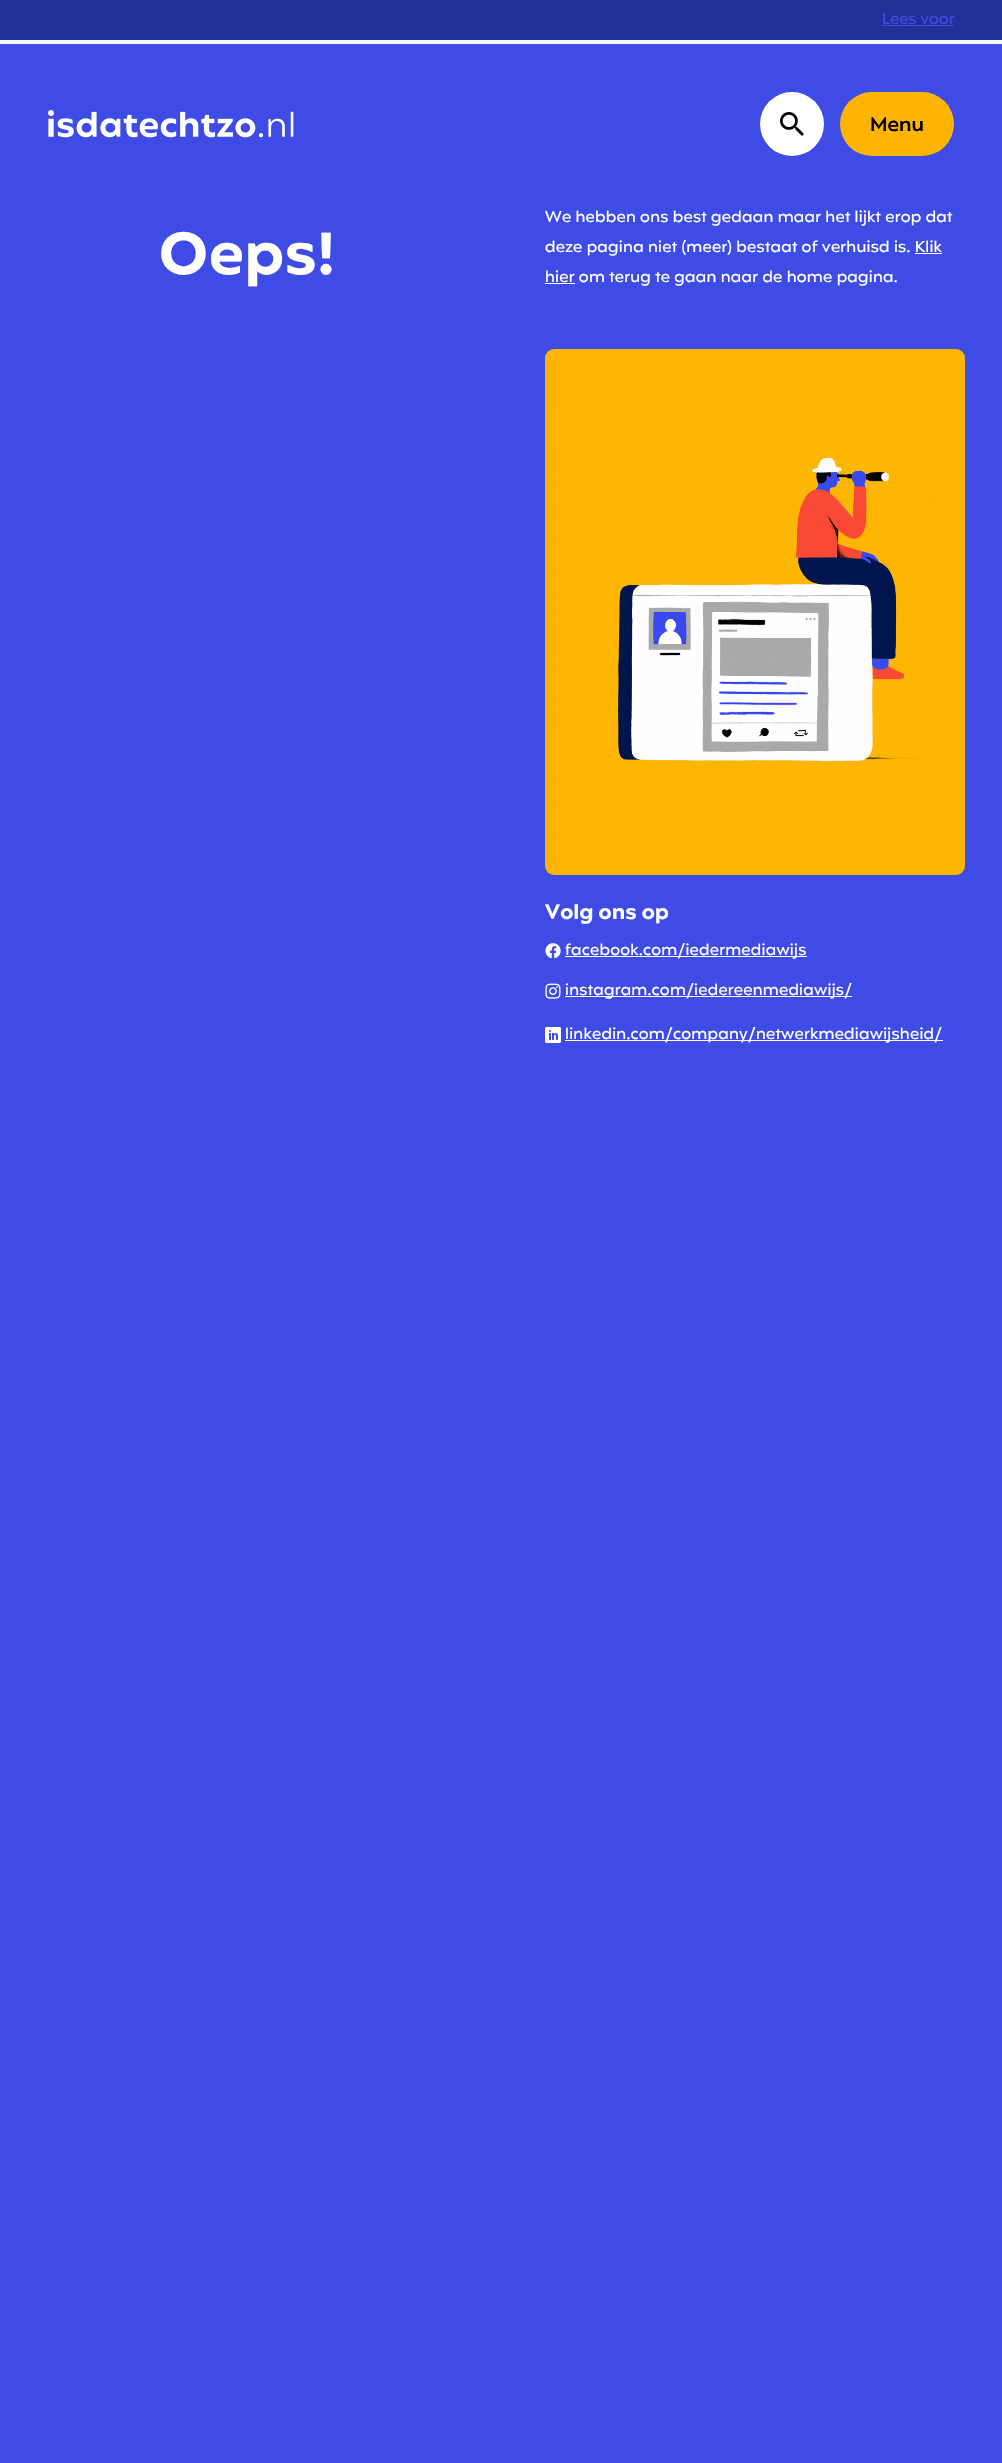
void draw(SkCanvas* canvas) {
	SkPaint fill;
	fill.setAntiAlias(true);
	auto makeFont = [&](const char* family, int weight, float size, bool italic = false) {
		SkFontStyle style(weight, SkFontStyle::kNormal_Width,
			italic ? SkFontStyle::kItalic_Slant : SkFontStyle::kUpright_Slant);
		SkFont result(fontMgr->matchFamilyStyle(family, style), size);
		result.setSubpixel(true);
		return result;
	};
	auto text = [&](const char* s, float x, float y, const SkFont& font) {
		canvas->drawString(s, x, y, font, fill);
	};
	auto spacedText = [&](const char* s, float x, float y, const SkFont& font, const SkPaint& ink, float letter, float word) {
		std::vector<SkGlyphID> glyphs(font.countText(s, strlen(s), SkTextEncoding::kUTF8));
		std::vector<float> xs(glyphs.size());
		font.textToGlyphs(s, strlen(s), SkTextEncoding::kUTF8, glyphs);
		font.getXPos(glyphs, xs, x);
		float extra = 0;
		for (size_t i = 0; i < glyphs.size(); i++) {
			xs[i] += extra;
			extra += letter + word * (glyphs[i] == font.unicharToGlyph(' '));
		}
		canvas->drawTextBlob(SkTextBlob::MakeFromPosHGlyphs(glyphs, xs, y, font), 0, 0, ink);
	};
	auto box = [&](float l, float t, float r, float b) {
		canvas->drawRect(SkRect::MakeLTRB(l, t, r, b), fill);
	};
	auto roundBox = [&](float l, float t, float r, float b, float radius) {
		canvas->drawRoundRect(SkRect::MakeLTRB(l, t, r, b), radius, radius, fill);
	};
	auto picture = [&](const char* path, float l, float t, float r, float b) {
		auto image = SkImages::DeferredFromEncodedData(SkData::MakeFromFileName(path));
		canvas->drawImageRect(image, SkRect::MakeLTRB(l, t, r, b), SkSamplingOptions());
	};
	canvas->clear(0xFF3E4BE4);
	fill.setColor(0xFFF5FAF7);
	box(0, 40, 1002, 44);
	fill.setColor(0xFF213097);
	box(0, 0, 1002, 40);
	fill.setColor(0xFF3E4BE4);
	box(882, 25, 954, 26);
	picture("image0.png", 48, 110, 294, 138);
	fill.setColor(0xFFFFFFFF);
	canvas->drawCircle(792, 124, 32, fill);
	picture("image1.png", 780, 112, 804, 136);
	fill.setColor(0xFFFFB500);
	roundBox(840, 92, 954, 156, 32);
	fill.setColor(0xFFFFFFFF);
	box(915, 253, 942, 254);
	box(545, 283, 575, 284);
	picture("image2.png", 545, 349, 965, 875);
	picture("image3.png", 545, 943, 561, 959);
	box(565, 956, 807, 957);
	picture("image4.png", 545, 983, 561, 999);
	box(565, 996, 852, 997);
	picture("image5.png", 545, 1027, 561, 1043);
	box(565, 1040, 943, 1041);
	auto font1 = makeFont("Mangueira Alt", 500, 16);
	fill.setColor(0xFF3E4BE4);
	text("Lees voor", 882, 24, font1);
	auto font2 = makeFont("Mangueira Alt", 600, 20);
	fill.setColor(0xFF000000);
	text("Menu", 870, 131, font2);
	auto font3 = makeFont("Mangueira Alt", 700, 60);
	fill.setColor(0xFFFFFFFF);
	spacedText("Oeps!", 159, 274, font3, fill, 1, 0);
	spacedText("We hebben ons best gedaan maar het lijkt erop dat", 545, 222, font1, fill, 0.27f, 0);
	spacedText("deze pagina niet (meer) bestaat of verhuisd is. Klik", 545, 252, font1, fill, 0.27f, 0);
	spacedText("hier om terug te gaan naar de home pagina.", 545, 282, font1, fill, 0.27f, 0);
	auto font4 = makeFont("Mangueira Alt", 700, 21);
	spacedText("Volg ons op", 545, 919, font4, fill, 0.3f, 0);
	spacedText("facebook.com/iedermediawijs", 565, 955, font1, fill, 0.27f, 0);
	spacedText("instagram.com/iedereenmediawijs/", 565, 995, font1, fill, 0.27f, 0);
	spacedText("linkedin.com/company/netwerkmediawijsheid/", 565, 1039, font1, fill, 0.27f, 0);
}
